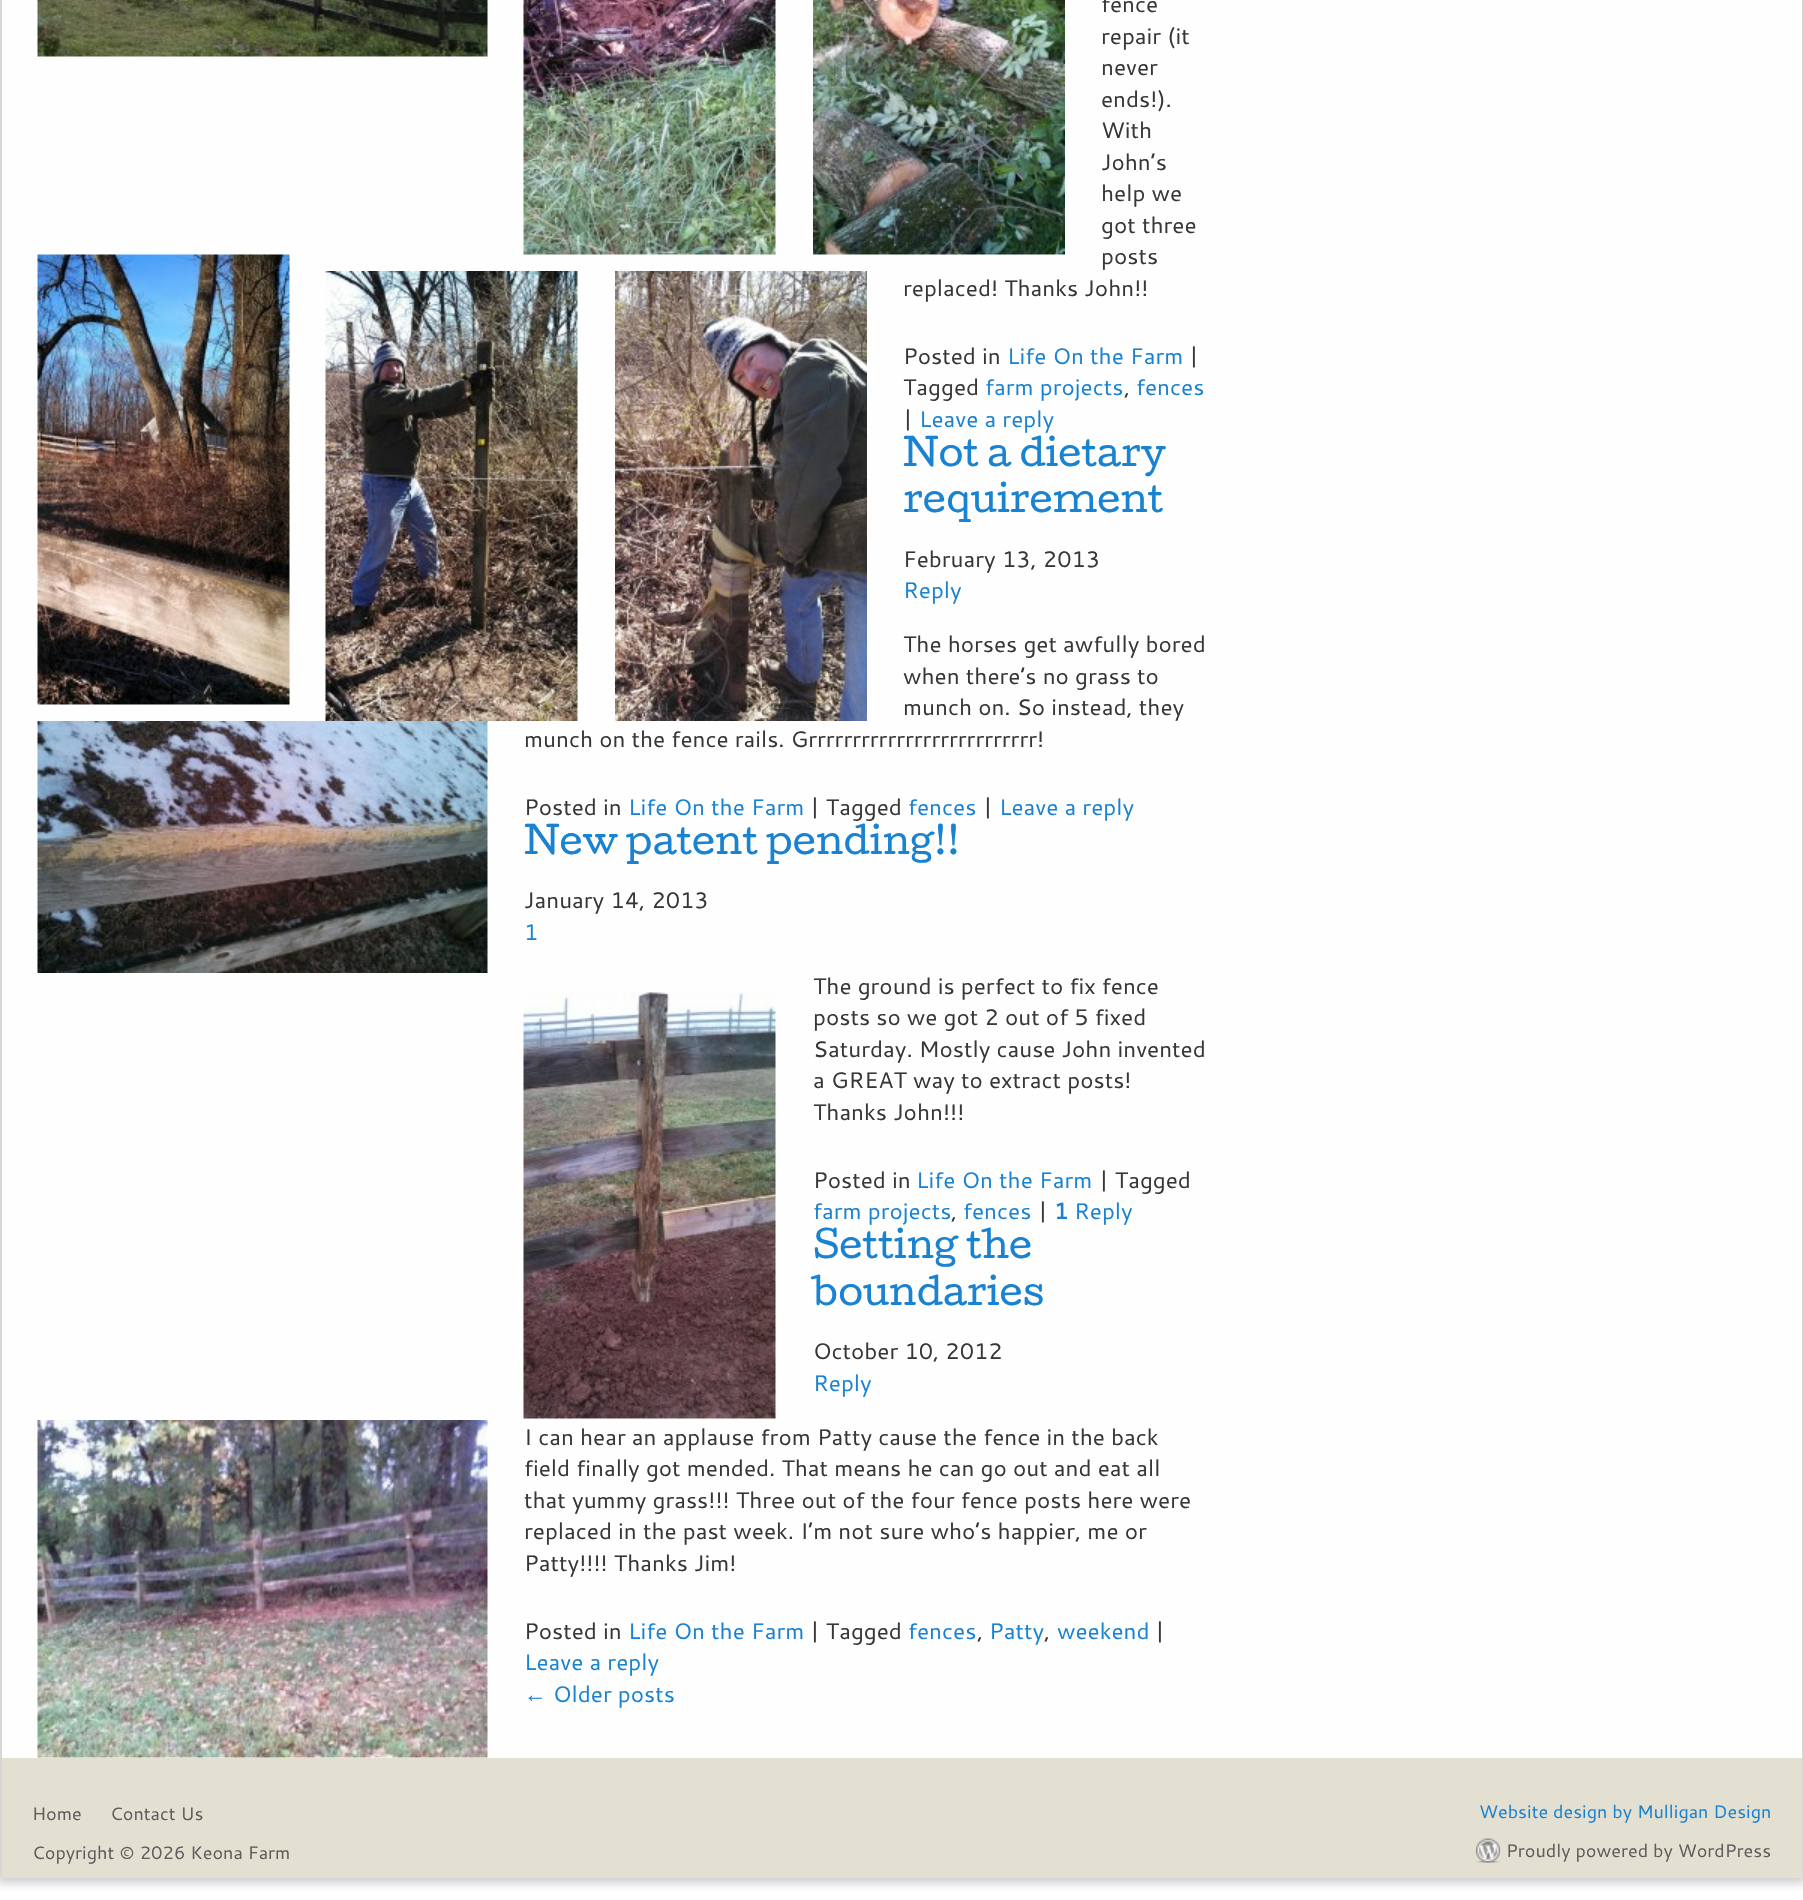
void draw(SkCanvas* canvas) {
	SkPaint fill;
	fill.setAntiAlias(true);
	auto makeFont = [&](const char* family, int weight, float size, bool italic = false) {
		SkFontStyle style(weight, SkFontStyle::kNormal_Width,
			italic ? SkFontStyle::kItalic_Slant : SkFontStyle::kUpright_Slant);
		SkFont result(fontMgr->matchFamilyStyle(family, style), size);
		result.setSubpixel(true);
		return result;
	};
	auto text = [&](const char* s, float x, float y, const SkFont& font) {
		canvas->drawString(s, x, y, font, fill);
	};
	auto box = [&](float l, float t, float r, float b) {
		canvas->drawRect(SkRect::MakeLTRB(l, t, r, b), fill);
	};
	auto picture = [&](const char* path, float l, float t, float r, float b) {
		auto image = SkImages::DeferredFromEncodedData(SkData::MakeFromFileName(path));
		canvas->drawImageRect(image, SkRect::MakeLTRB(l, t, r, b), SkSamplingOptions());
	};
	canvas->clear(0xFFFFFFFF);
	fill.setColor(0x33000000);
	fill.setMaskFilter(SkMaskFilter::MakeBlur(kNormal_SkBlurStyle, 4.5f));
	canvas->drawRect(SkRect::MakeLTRB(-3, -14, 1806, 1883), fill);
	fill.setMaskFilter(nullptr);
	fill.setColor(0xFFFEFEFE);
	box(2, 0, 1802, 1758);
	picture("image0.png", 37, 0, 488, 57);
	picture("image1.png", 523, 0, 776, 255);
	picture("image2.png", 813, 0, 1065, 255);
	picture("image3.png", 37, 254, 290, 705);
	picture("image4.png", 325, 271, 578, 721);
	picture("image5.png", 615, 271, 867, 721);
	picture("image6.png", 37, 721, 488, 973);
	picture("image7.png", 523, 992, 776, 1419);
	picture("image8.png", 37, 1420, 488, 1758);
	fill.setColor(0xFFE3E0D1);
	box(2, 1758, 1802, 1878);
	picture("image9.png", 1476, 1838, 1500, 1863);
	auto font1 = makeFont("Cantarell", 400, 22.5f);
	fill.setColor(0xFF373737);
	text("fence", 1101, 12, font1);
	text("repair (it", 1101, 44, font1);
	text("never", 1101, 75, font1);
	text("ends!).", 1101, 107, font1);
	text("With", 1101, 138, font1);
	text("John’s", 1101, 170, font1);
	text("help we", 1101, 201, font1);
	text("got three", 1101, 233, font1);
	text("posts", 1101, 264, font1);
	text("replaced! Thanks John!!", 903, 296, font1);
	text("Posted in", 903, 364, font1);
	fill.setColor(0xFF1982D1);
	text("Life On the Farm", 1007, 364, font1);
	fill.setColor(0xFF373737);
	text("|", 1189, 364, font1);
	text("Tagged", 903, 395, font1);
	fill.setColor(0xFF1982D1);
	text("farm projects", 985, 395, font1);
	fill.setColor(0xFF373737);
	text(",", 1124, 395, font1);
	fill.setColor(0xFF1982D1);
	text("fences", 1136, 395, font1);
	fill.setColor(0xFF373737);
	text("|", 903, 427, font1);
	fill.setColor(0xFF1982D1);
	text("Leave a reply", 919, 427, font1);
	auto font2 = makeFont("Cutive", 400, 36);
	text("Not a dietary", 903, 466, font2);
	text("requirement", 903, 512, font2);
	fill.setColor(0xFF373737);
	text("February 13, 2013", 903, 567, font1);
	fill.setColor(0xFF1982D1);
	text("Reply", 903, 598, font1);
	fill.setColor(0xFF373737);
	text("The horses get awfully bored", 903, 652, font1);
	text("when there’s no grass to", 903, 684, font1);
	text("munch on. So instead, they", 903, 715, font1);
	text("munch on the fence rails. Grrrrrrrrrrrrrrrrrrrrrrrrrr!", 524, 747, font1);
	text("Posted in", 524, 815, font1);
	fill.setColor(0xFF1982D1);
	text("Life On the Farm", 628, 815, font1);
	fill.setColor(0xFF373737);
	text("| Tagged", 810, 815, font1);
	fill.setColor(0xFF1982D1);
	text("fences", 908, 815, font1);
	fill.setColor(0xFF373737);
	text("|", 983, 815, font1);
	fill.setColor(0xFF1982D1);
	text("Leave a reply", 999, 815, font1);
	text("New patent pending!!", 524, 854, font2);
	fill.setColor(0xFF373737);
	text("January 14, 2013", 524, 908, font1);
	fill.setColor(0xFF1982D1);
	text("1", 524, 940, font1);
	fill.setColor(0xFF373737);
	text("The ground is perfect to fix fence", 813, 994, font1);
	text("posts so we got 2 out of 5 fixed", 813, 1025, font1);
	text("Saturday. Mostly cause John invented", 813, 1057, font1);
	text("a GREAT way to extract posts!", 813, 1088, font1);
	text("Thanks John!!!", 813, 1120, font1);
	text("Posted in", 813, 1188, font1);
	fill.setColor(0xFF1982D1);
	text("Life On the Farm", 916, 1188, font1);
	fill.setColor(0xFF373737);
	text("| Tagged", 1099, 1188, font1);
	fill.setColor(0xFF1982D1);
	text("farm projects", 813, 1219, font1);
	text("fences", 963, 1219, font1);
	fill.setColor(0xFF373737);
	text("|", 1038, 1219, font1);
	auto font3 = makeFont("Cantarell", 700, 22.5f);
	fill.setColor(0xFF1982D1);
	text("1", 1054, 1219, font3);
	text("Reply", 1074, 1219, font1);
	fill.setColor(0xFF373737);
	text(",", 951, 1219, font1);
	fill.setColor(0xFF1982D1);
	text("Setting the", 813, 1258, font2);
	text("boundaries", 813, 1305, font2);
	fill.setColor(0xFF373737);
	text("October 10, 2012", 813, 1359, font1);
	fill.setColor(0xFF1982D1);
	text("Reply", 813, 1391, font1);
	fill.setColor(0xFF373737);
	text("I can hear an applause from Patty cause the fence in the back", 524, 1445, font1);
	text("field finally got mended. That means he can go out and eat all", 524, 1476, font1);
	text("that yummy grass!!! Three out of the four fence posts here were", 524, 1508, font1);
	text("replaced in the past week. I’m not sure who’s happier, me or", 524, 1539, font1);
	text("Patty!!!! Thanks Jim!", 524, 1571, font1);
	text("Posted in", 524, 1639, font1);
	fill.setColor(0xFF1982D1);
	text("Life On the Farm", 628, 1639, font1);
	fill.setColor(0xFF373737);
	text("| Tagged", 810, 1639, font1);
	fill.setColor(0xFF1982D1);
	text("fences", 908, 1639, font1);
	fill.setColor(0xFF373737);
	text(",", 977, 1639, font1);
	fill.setColor(0xFF1982D1);
	text("Patty", 989, 1639, font1);
	fill.setColor(0xFF373737);
	text(",", 1044, 1639, font1);
	fill.setColor(0xFF1982D1);
	text("weekend", 1057, 1639, font1);
	fill.setColor(0xFF373737);
	text("|", 1155, 1639, font1);
	fill.setColor(0xFF1982D1);
	text("Leave a reply", 524, 1670, font1);
	auto font4 = makeFont("Liberation Sans", 400, 22.5f);
	text("←", 524, 1702, font4);
	text("Older posts", 553, 1702, font1);
	auto font5 = makeFont("Cantarell", 400, 18);
	fill.setColor(0xFF5D5D5D);
	text("Home", 32, 1820, font5);
	text("Contact Us", 110, 1820, font5);
	text("Copyright © 2026 Keona Farm", 32, 1859, font5);
	fill.setColor(0xFF1982D1);
	text("Website design by Mulligan Design", 1479, 1818, font5);
	fill.setColor(0xFF5D5D5D);
	text("Proudly powered by WordPress", 1506, 1857, font5);
}
